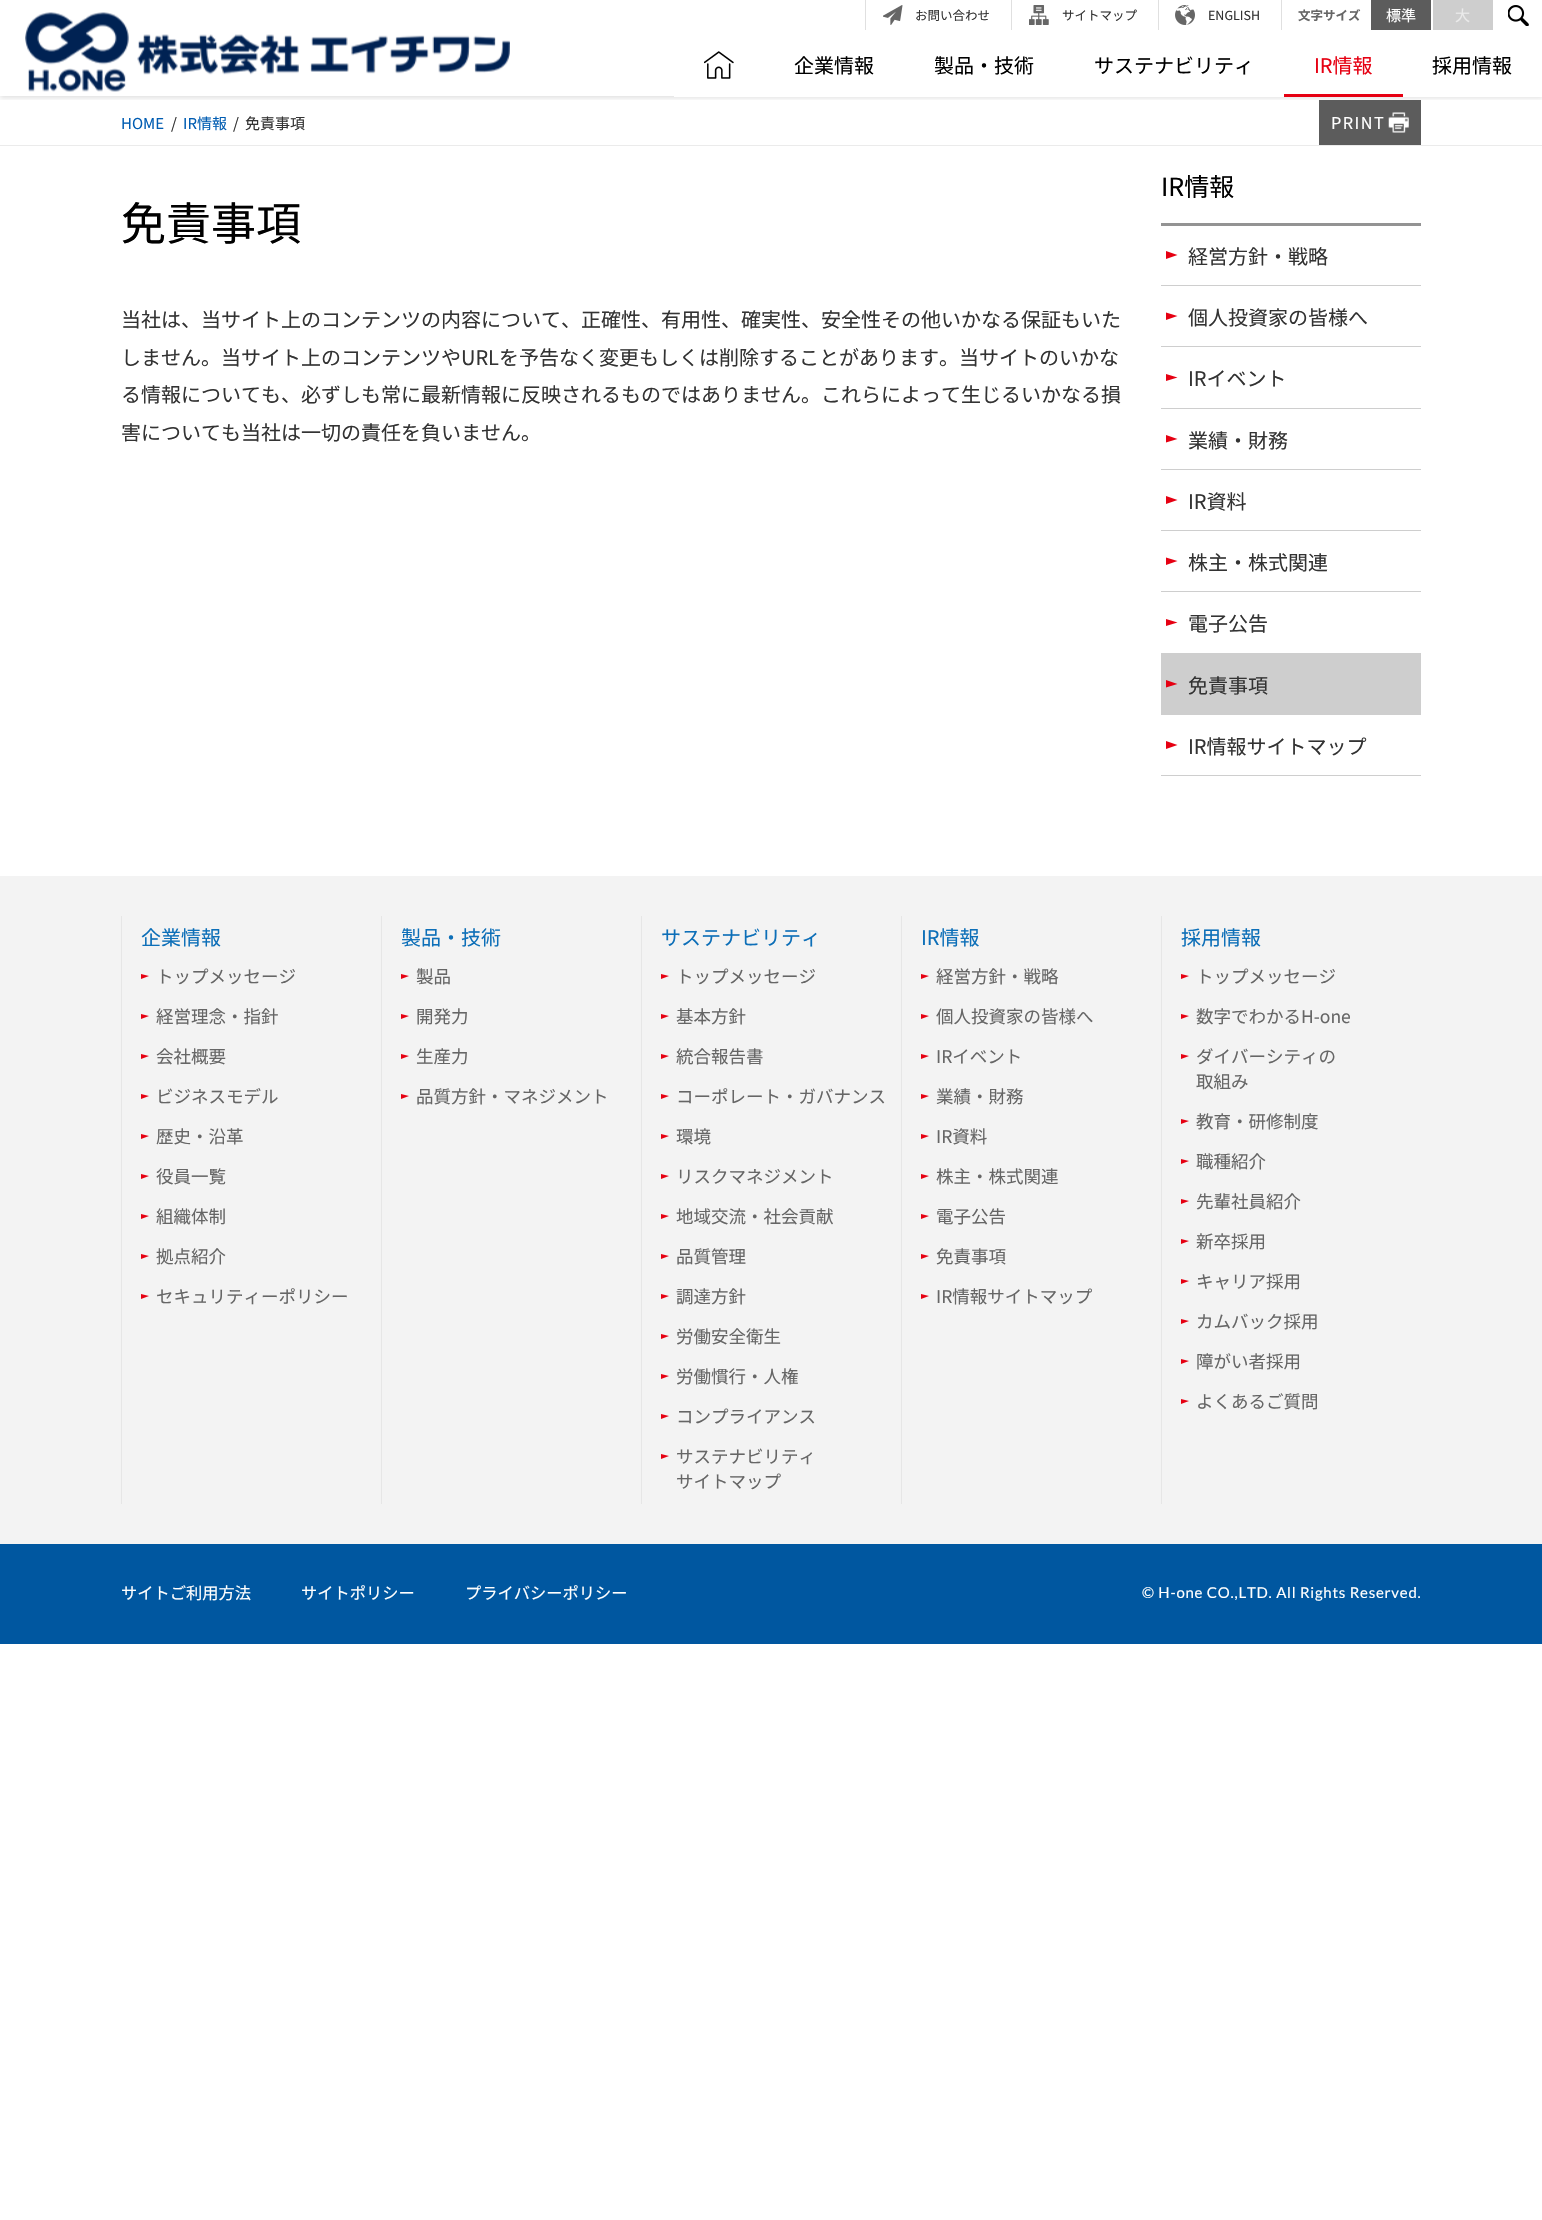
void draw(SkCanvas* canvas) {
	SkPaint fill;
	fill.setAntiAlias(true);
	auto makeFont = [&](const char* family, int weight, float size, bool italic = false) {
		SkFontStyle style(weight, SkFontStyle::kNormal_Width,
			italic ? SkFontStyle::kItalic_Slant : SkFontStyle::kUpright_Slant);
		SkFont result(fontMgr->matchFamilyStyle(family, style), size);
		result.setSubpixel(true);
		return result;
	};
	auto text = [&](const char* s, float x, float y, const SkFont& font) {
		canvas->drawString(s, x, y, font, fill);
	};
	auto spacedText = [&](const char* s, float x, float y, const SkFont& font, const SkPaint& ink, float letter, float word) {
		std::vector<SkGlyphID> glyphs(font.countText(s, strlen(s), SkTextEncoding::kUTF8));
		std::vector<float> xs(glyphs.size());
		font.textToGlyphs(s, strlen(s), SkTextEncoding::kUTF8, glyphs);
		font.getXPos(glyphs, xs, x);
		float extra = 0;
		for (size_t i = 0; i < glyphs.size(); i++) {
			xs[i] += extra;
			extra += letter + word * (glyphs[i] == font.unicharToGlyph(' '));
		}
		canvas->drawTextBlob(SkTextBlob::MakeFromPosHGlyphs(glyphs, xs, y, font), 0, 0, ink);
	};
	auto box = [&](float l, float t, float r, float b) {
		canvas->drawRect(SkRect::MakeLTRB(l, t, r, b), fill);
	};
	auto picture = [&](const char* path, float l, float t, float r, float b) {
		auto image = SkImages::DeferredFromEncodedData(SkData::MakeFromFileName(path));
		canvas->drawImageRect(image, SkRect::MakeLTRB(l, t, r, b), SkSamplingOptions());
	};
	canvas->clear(0xFFFFFFFF);
	fill.setColor(0xFF5C5C5C);
	box(1319, 100, 1421, 145);
	canvas->save();
	canvas->clipRect(SkRect::MakeLTRB(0, 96, 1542, 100));
	fill.setColor(0x1F000000);
	fill.setMaskFilter(SkMaskFilter::MakeBlur(kNormal_SkBlurStyle, 2.5f));
	canvas->drawRect(SkRect::MakeLTRB(0, 1, 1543, 98), fill);
	fill.setMaskFilter(nullptr);
	canvas->restore();
	picture("image0.png", 25, 12, 129, 92);
	picture("image1.png", 137, 34, 510, 75);
	fill.setColor(0xFFE0E0E0);
	box(865, 0, 866, 30);
	box(1011, 0, 1012, 30);
	picture("image2.png", 883, 5, 903, 25);
	box(1158, 0, 1159, 30);
	picture("image3.png", 1029, 5, 1049, 25);
	box(1281, 0, 1282, 30);
	picture("image4.png", 1175, 5, 1195, 25);
	fill.setColor(0xFF5C5C5C);
	box(1371, 0, 1431, 30);
	fill.setColor(0xFFCECECE);
	box(1433, 0, 1493, 30);
	fill.setColor(0xFFFFFFFF);
	box(674, 96, 1284, 97);
	picture("image5.png", 704, 51, 734, 79);
	fill.setColor(0xFFE60012);
	box(1284, 94, 1403, 97);
	fill.setColor(0xFFFFFFFF);
	box(1403, 96, 1542, 97);
	picture("image6.png", 1508, 5, 1529, 26);
	fill.setColor(0xFFEBEBEB);
	box(0, 145, 1542, 146);
	picture("image7.png", 1388, 112, 1409, 133);
	fill.setColor(0xFF939393);
	box(1161, 223, 1421, 226);
	fill.setColor(0xFFCECECE);
	box(1161, 285, 1421, 286);
	fill.setColor(0xFFE60012);
	canvas->drawPath(SkPathBuilder().moveTo(1166, 259).lineTo(1166, 251).lineTo(1177.5f, 255).close().detach(), fill);
	fill.setColor(0xFFCECECE);
	box(1161, 346, 1421, 347);
	fill.setColor(0xFFE60012);
	canvas->drawPath(SkPathBuilder().moveTo(1166, 320).lineTo(1166, 312.5f).lineTo(1177.5f, 316).close().detach(), fill);
	fill.setColor(0xFFCECECE);
	box(1161, 408, 1421, 409);
	fill.setColor(0xFFE60012);
	canvas->drawPath(SkPathBuilder().moveTo(1166, 381).lineTo(1166, 374).lineTo(1177.5f, 377.5f).close().detach(), fill);
	fill.setColor(0xFFCECECE);
	box(1161, 469, 1421, 470);
	fill.setColor(0xFFE60012);
	canvas->drawPath(SkPathBuilder().moveTo(1166, 442.5f).lineTo(1166, 435).lineTo(1177.5f, 439).close().detach(), fill);
	fill.setColor(0xFFCECECE);
	box(1161, 530, 1421, 531);
	fill.setColor(0xFFE60012);
	canvas->drawPath(SkPathBuilder().moveTo(1166, 504).lineTo(1166, 496).lineTo(1177.5f, 500).close().detach(), fill);
	fill.setColor(0xFFCECECE);
	box(1161, 591, 1421, 592);
	fill.setColor(0xFFE60012);
	canvas->drawPath(SkPathBuilder().moveTo(1166, 565).lineTo(1166, 557.5f).lineTo(1177.5f, 561).close().detach(), fill);
	fill.setColor(0xFFCECECE);
	box(1161, 653, 1421, 654);
	fill.setColor(0xFFE60012);
	canvas->drawPath(SkPathBuilder().moveTo(1166, 626).lineTo(1166, 619).lineTo(1177.5f, 622.5f).close().detach(), fill);
	fill.setColor(0xFFCECECE);
	box(1161, 654, 1421, 715);
	fill.setColor(0xFFE60012);
	canvas->drawPath(SkPathBuilder().moveTo(1166, 687.5f).lineTo(1166, 680).lineTo(1177.5f, 684).close().detach(), fill);
	fill.setColor(0xFFCECECE);
	box(1161, 775, 1421, 776);
	fill.setColor(0xFFE60012);
	canvas->drawPath(SkPathBuilder().moveTo(1166, 749).lineTo(1166, 741).lineTo(1177.5f, 745).close().detach(), fill);
	fill.setColor(0xFFF3F3F3);
	box(0, 876, 1542, 1544);
	fill.setColor(0xFFE6E6E6);
	box(121, 916, 122, 1504);
	fill.setColor(0xFFE60012);
	canvas->drawPath(SkPathBuilder().moveTo(141, 979).lineTo(141, 974).lineTo(149, 976).close().detach(), fill);
	canvas->drawPath(SkPathBuilder().moveTo(141, 1019).lineTo(141, 1014).lineTo(149, 1016).close().detach(), fill);
	canvas->drawPath(SkPathBuilder().moveTo(141, 1059).lineTo(141, 1054).lineTo(149, 1056).close().detach(), fill);
	canvas->drawPath(SkPathBuilder().moveTo(141, 1099).lineTo(141, 1094).lineTo(149, 1096).close().detach(), fill);
	canvas->drawPath(SkPathBuilder().moveTo(141, 1139).lineTo(141, 1134).lineTo(149, 1136).close().detach(), fill);
	canvas->drawPath(SkPathBuilder().moveTo(141, 1179).lineTo(141, 1174).lineTo(149, 1176).close().detach(), fill);
	canvas->drawPath(SkPathBuilder().moveTo(141, 1219).lineTo(141, 1214).lineTo(149, 1216).close().detach(), fill);
	canvas->drawPath(SkPathBuilder().moveTo(141, 1259).lineTo(141, 1254).lineTo(149, 1256).close().detach(), fill);
	canvas->drawPath(SkPathBuilder().moveTo(141, 1299).lineTo(141, 1294).lineTo(149, 1296).close().detach(), fill);
	fill.setColor(0xFFE6E6E6);
	box(381, 916, 382, 1504);
	fill.setColor(0xFFE60012);
	canvas->drawPath(SkPathBuilder().moveTo(401, 979).lineTo(401, 974).lineTo(409, 976).close().detach(), fill);
	canvas->drawPath(SkPathBuilder().moveTo(401, 1019).lineTo(401, 1014).lineTo(409, 1016).close().detach(), fill);
	canvas->drawPath(SkPathBuilder().moveTo(401, 1059).lineTo(401, 1054).lineTo(409, 1056).close().detach(), fill);
	canvas->drawPath(SkPathBuilder().moveTo(401, 1099).lineTo(401, 1094).lineTo(409, 1096).close().detach(), fill);
	fill.setColor(0xFFE6E6E6);
	box(641, 916, 642, 1504);
	fill.setColor(0xFFE60012);
	canvas->drawPath(SkPathBuilder().moveTo(661, 979).lineTo(661, 974).lineTo(669, 976).close().detach(), fill);
	canvas->drawPath(SkPathBuilder().moveTo(661, 1019).lineTo(661, 1014).lineTo(669, 1016).close().detach(), fill);
	canvas->drawPath(SkPathBuilder().moveTo(661, 1059).lineTo(661, 1054).lineTo(669, 1056).close().detach(), fill);
	canvas->drawPath(SkPathBuilder().moveTo(661, 1099).lineTo(661, 1094).lineTo(669, 1096).close().detach(), fill);
	canvas->drawPath(SkPathBuilder().moveTo(661, 1139).lineTo(661, 1134).lineTo(669, 1136).close().detach(), fill);
	canvas->drawPath(SkPathBuilder().moveTo(661, 1179).lineTo(661, 1174).lineTo(669, 1176).close().detach(), fill);
	canvas->drawPath(SkPathBuilder().moveTo(661, 1219).lineTo(661, 1214).lineTo(669, 1216).close().detach(), fill);
	canvas->drawPath(SkPathBuilder().moveTo(661, 1259).lineTo(661, 1254).lineTo(669, 1256).close().detach(), fill);
	canvas->drawPath(SkPathBuilder().moveTo(661, 1299).lineTo(661, 1294).lineTo(669, 1296).close().detach(), fill);
	canvas->drawPath(SkPathBuilder().moveTo(661, 1339).lineTo(661, 1334).lineTo(669, 1336).close().detach(), fill);
	canvas->drawPath(SkPathBuilder().moveTo(661, 1379).lineTo(661, 1374).lineTo(669, 1376).close().detach(), fill);
	canvas->drawPath(SkPathBuilder().moveTo(661, 1419).lineTo(661, 1414).lineTo(669, 1416).close().detach(), fill);
	canvas->drawPath(SkPathBuilder().moveTo(661, 1459).lineTo(661, 1454).lineTo(669, 1456).close().detach(), fill);
	fill.setColor(0xFFE6E6E6);
	box(901, 916, 902, 1504);
	fill.setColor(0xFFE60012);
	canvas->drawPath(SkPathBuilder().moveTo(921, 979).lineTo(921, 974).lineTo(929, 976).close().detach(), fill);
	canvas->drawPath(SkPathBuilder().moveTo(921, 1019).lineTo(921, 1014).lineTo(929, 1016).close().detach(), fill);
	canvas->drawPath(SkPathBuilder().moveTo(921, 1059).lineTo(921, 1054).lineTo(929, 1056).close().detach(), fill);
	canvas->drawPath(SkPathBuilder().moveTo(921, 1099).lineTo(921, 1094).lineTo(929, 1096).close().detach(), fill);
	canvas->drawPath(SkPathBuilder().moveTo(921, 1139).lineTo(921, 1134).lineTo(929, 1136).close().detach(), fill);
	canvas->drawPath(SkPathBuilder().moveTo(921, 1179).lineTo(921, 1174).lineTo(929, 1176).close().detach(), fill);
	canvas->drawPath(SkPathBuilder().moveTo(921, 1219).lineTo(921, 1214).lineTo(929, 1216).close().detach(), fill);
	canvas->drawPath(SkPathBuilder().moveTo(921, 1259).lineTo(921, 1254).lineTo(929, 1256).close().detach(), fill);
	canvas->drawPath(SkPathBuilder().moveTo(921, 1299).lineTo(921, 1294).lineTo(929, 1296).close().detach(), fill);
	fill.setColor(0xFFE6E6E6);
	box(1161, 916, 1162, 1504);
	fill.setColor(0xFFE60012);
	canvas->drawPath(SkPathBuilder().moveTo(1181, 979).lineTo(1181, 974).lineTo(1189, 976).close().detach(), fill);
	canvas->drawPath(SkPathBuilder().moveTo(1181, 1019).lineTo(1181, 1014).lineTo(1189, 1016).close().detach(), fill);
	canvas->drawPath(SkPathBuilder().moveTo(1181, 1059).lineTo(1181, 1054).lineTo(1189, 1056).close().detach(), fill);
	canvas->drawPath(SkPathBuilder().moveTo(1181, 1124).lineTo(1181, 1119).lineTo(1189, 1121).close().detach(), fill);
	canvas->drawPath(SkPathBuilder().moveTo(1181, 1164).lineTo(1181, 1159).lineTo(1189, 1161).close().detach(), fill);
	canvas->drawPath(SkPathBuilder().moveTo(1181, 1204).lineTo(1181, 1199).lineTo(1189, 1201).close().detach(), fill);
	canvas->drawPath(SkPathBuilder().moveTo(1181, 1244).lineTo(1181, 1239).lineTo(1189, 1241).close().detach(), fill);
	canvas->drawPath(SkPathBuilder().moveTo(1181, 1284).lineTo(1181, 1279).lineTo(1189, 1281).close().detach(), fill);
	canvas->drawPath(SkPathBuilder().moveTo(1181, 1324).lineTo(1181, 1319).lineTo(1189, 1321).close().detach(), fill);
	canvas->drawPath(SkPathBuilder().moveTo(1181, 1364).lineTo(1181, 1359).lineTo(1189, 1361).close().detach(), fill);
	canvas->drawPath(SkPathBuilder().moveTo(1181, 1404).lineTo(1181, 1399).lineTo(1189, 1401).close().detach(), fill);
	fill.setColor(0xFF0057A0);
	box(0, 1544, 1542, 1644);
	auto font1 = makeFont("Noto Sans JP", 400, 12.5f);
	fill.setColor(0xFF333333);
	text("お問い合わせ", 915, 20, font1);
	text("サイトマップ", 1062, 20, font1);
	text("ENGLISH", 1208, 20, font1);
	auto font2 = makeFont("Noto Sans JP", 700, 12.5f);
	fill.setColor(0xFF666666);
	text("文字サイズ", 1298, 20, font2);
	auto font3 = makeFont("Noto Sans JP", 400, 15);
	fill.setColor(0xFFFFFFFF);
	text("標準", 1386, 21, font3);
	fill.setColor(0xFFEBEBEB);
	text("大", 1455, 21, font3);
	auto font4 = makeFont("Noto Sans JP", 400, 20);
	fill.setColor(0xFF000000);
	text("企業情報", 794, 73, font4);
	text("製品・技術", 934, 73, font4);
	text("サステナビリティ", 1094, 73, font4);
	fill.setColor(0xFFE60012);
	text("IR情報", 1314, 73, font4);
	fill.setColor(0xFF000000);
	text("採用情報", 1432, 73, font4);
	fill.setColor(0xFF005CB2);
	text("HOME", 121, 129, font3);
	fill.setColor(0xFF333333);
	text("/", 171, 129, font3);
	fill.setColor(0xFF005CB2);
	text("IR情報", 183, 129, font3);
	fill.setColor(0xFF333333);
	text("/", 233, 129, font3);
	text("免責事項", 245, 129, font3);
	auto font5 = makeFont("Noto Sans JP", 400, 16.25f);
	fill.setColor(0xFFFFFFFF);
	spacedText("PRINT", 1331, 129, font5, fill, 1.5f, 0);
	auto font6 = makeFont("Noto Sans JP", 400, 45);
	fill.setColor(0xFF000000);
	text("免責事項", 121, 240, font6);
	fill.setColor(0xFF333333);
	text("当社は、当サイト上のコンテンツの内容について、正確性、有用性、確実性、安全性その他いかなる保証もいた", 121, 327, font4);
	text("しません。当サイト上のコンテンツやURLを予告なく変更もしくは削除することがあります。当サイトのいかな", 121, 365, font4);
	text("る情報についても、必ずしも常に最新情報に反映されるものではありません。これらによって生じるいかなる損", 121, 402, font4);
	text("害についても当社は一切の責任を負いません。", 121, 440, font4);
	auto font7 = makeFont("Noto Sans JP", 400, 25);
	fill.setColor(0xFF000000);
	text("IR情報", 1161, 196, font7);
	fill.setColor(0xFF333333);
	text("経営方針・戦略", 1188, 264, font4);
	text("個人投資家の皆様へ", 1188, 325, font4);
	text("IRイベント", 1188, 386, font4);
	text("業績・財務", 1188, 448, font4);
	text("IR資料", 1188, 509, font4);
	text("株主・株式関連", 1188, 570, font4);
	text("電子公告", 1188, 631, font4);
	text("免責事項", 1188, 693, font4);
	text("IR情報サイトマップ", 1188, 754, font4);
	fill.setColor(0xFF0D6FB8);
	text("企業情報", 141, 945, font4);
	auto font8 = makeFont("Noto Sans JP", 400, 17.5f);
	fill.setColor(0xFF666666);
	text("トップメッセージ", 156, 983, font8);
	text("経営理念・指針", 156, 1023, font8);
	text("会社概要", 156, 1063, font8);
	text("ビジネスモデル", 156, 1103, font8);
	text("歴史・沿革", 156, 1143, font8);
	text("役員一覧", 156, 1183, font8);
	text("組織体制", 156, 1223, font8);
	text("拠点紹介", 156, 1263, font8);
	text("セキュリティーポリシー", 156, 1303, font8);
	fill.setColor(0xFF0D6FB8);
	text("製品・技術", 401, 945, font4);
	fill.setColor(0xFF666666);
	text("製品", 416, 983, font8);
	text("開発力", 416, 1023, font8);
	text("生産力", 416, 1063, font8);
	text("品質方針・マネジメント", 416, 1103, font8);
	fill.setColor(0xFF0D6FB8);
	text("サステナビリティ", 661, 945, font4);
	fill.setColor(0xFF666666);
	text("トップメッセージ", 676, 983, font8);
	text("基本方針", 676, 1023, font8);
	text("統合報告書", 676, 1063, font8);
	text("コーポレート・ガバナンス", 676, 1103, font8);
	text("環境", 676, 1143, font8);
	text("リスクマネジメント", 676, 1183, font8);
	text("地域交流・社会貢献", 676, 1223, font8);
	text("品質管理", 676, 1263, font8);
	text("調達方針", 676, 1303, font8);
	text("労働安全衛生", 676, 1343, font8);
	text("労働慣行・人権", 676, 1383, font8);
	text("コンプライアンス", 676, 1423, font8);
	text("サステナビリティ", 676, 1463, font8);
	text("サイトマップ", 676, 1488, font8);
	fill.setColor(0xFF0D6FB8);
	text("IR情報", 921, 945, font4);
	fill.setColor(0xFF666666);
	text("経営方針・戦略", 936, 983, font8);
	text("個人投資家の皆様へ", 936, 1023, font8);
	text("IRイベント", 936, 1063, font8);
	text("業績・財務", 936, 1103, font8);
	text("IR資料", 936, 1143, font8);
	text("株主・株式関連", 936, 1183, font8);
	text("電子公告", 936, 1223, font8);
	text("免責事項", 936, 1263, font8);
	text("IR情報サイトマップ", 936, 1303, font8);
	fill.setColor(0xFF0D6FB8);
	text("採用情報", 1181, 945, font4);
	fill.setColor(0xFF666666);
	text("トップメッセージ", 1196, 983, font8);
	text("数字でわかるH-one", 1196, 1023, font8);
	text("ダイバーシティの", 1196, 1063, font8);
	text("取組み", 1196, 1088, font8);
	text("教育・研修制度", 1196, 1128, font8);
	text("職種紹介", 1196, 1168, font8);
	text("先輩社員紹介", 1196, 1208, font8);
	text("新卒採用", 1196, 1248, font8);
	text("キャリア採用", 1196, 1288, font8);
	text("カムバック採用", 1196, 1328, font8);
	text("障がい者採用", 1196, 1368, font8);
	text("よくあるご質問", 1196, 1408, font8);
	fill.setColor(0xFFFFFFFF);
	text("サイトご利用方法", 121, 1599, font5);
	text("サイトポリシー", 301, 1599, font5);
	text("プライバシーポリシー", 465, 1599, font5);
	auto font9 = makeFont("Lato", 400, 15);
	spacedText("© H-one CO.,LTD. All Rights Reserved.", 1142, 1598, font9, fill, 0.75f, 0);
}
